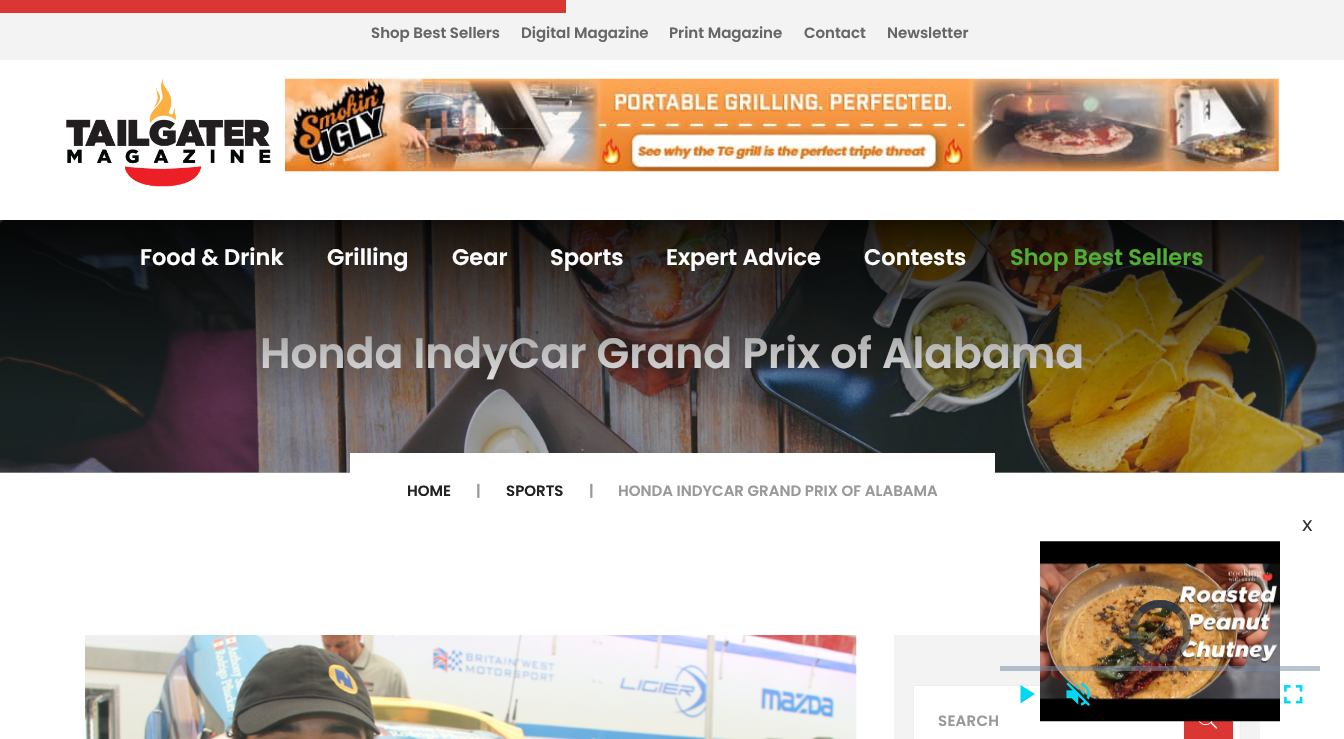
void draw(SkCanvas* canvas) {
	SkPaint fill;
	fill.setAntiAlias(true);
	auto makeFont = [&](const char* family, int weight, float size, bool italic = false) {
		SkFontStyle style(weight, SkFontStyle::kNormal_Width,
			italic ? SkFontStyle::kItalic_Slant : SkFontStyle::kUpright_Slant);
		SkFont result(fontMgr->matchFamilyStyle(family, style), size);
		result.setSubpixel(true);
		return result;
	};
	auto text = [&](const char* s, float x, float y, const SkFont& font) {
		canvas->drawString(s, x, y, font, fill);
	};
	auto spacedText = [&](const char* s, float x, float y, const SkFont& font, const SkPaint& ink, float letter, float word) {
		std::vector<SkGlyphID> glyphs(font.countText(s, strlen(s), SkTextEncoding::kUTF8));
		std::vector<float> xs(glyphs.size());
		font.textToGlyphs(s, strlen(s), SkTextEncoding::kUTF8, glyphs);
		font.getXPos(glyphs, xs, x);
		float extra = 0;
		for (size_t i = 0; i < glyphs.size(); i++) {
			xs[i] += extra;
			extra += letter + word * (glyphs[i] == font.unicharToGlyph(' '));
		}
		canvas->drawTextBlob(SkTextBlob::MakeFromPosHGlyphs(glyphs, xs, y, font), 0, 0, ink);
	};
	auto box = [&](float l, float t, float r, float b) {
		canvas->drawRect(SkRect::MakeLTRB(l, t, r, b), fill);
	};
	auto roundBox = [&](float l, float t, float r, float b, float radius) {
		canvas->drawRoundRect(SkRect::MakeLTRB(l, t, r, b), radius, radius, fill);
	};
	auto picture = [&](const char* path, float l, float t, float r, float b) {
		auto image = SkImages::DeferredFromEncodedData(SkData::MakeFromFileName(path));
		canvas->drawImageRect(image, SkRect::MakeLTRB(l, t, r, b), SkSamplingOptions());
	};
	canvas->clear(0xFFFFFFFF);
	fill.setColor(0xFFB3B3B3);
	box(0, 472, 1344, 473);
	fill.setColor(0xFFF3F3F3);
	box(0, 0, 1344, 60);
	fill.setColor(0xFFDA3732);
	box(0, 0, 566, 13);
	picture("image0.png", 66, 78, 271, 187);
	picture("image1.png", 285, 78, 1279, 172);
	picture("image2.png", 0, 220, 1344, 473);
	fill.setColor(0xFFFFFFFF);
	box(350, 453, 995, 473);
	fill.setColor(0xFFF3F3F3);
	box(894, 635, 1260, 739);
	fill.setColor(0xFFFFFFFF);
	canvas->drawRect(SkRect::MakeLTRB(913.5f, 685.5f, 1240.5f, 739.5f), fill);
	fill.setStyle(SkPaint::kStroke_Style);
	fill.setStrokeWidth(1);
	fill.setColor(0xFFEEEEEE);
	canvas->drawRect(SkRect::MakeLTRB(913.5f, 685.5f, 1240.5f, 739.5f), fill);
	fill.setStyle(SkPaint::kFill_Style);
	fill.setColor(0xFFDA3732);
	box(1184, 721, 1233, 739);
	picture("image7.png", 1198, 721, 1218, 729);
	picture("image3.png", 1040, 541, 1280, 722);
	fill.setStyle(SkPaint::kStroke_Style);
	fill.setStrokeWidth(8);
	fill.setColor(0x962B333F);
	canvas->drawRoundRect(SkRect::MakeLTRB(1133, 604, 1187, 659), 27, 27, fill);
	fill.setStrokeWidth(7.5f);
	canvas->drawPath(SkPathBuilder().moveTo(1140.5f, 612).cubicTo(1151, 601, 1169, 601, 1179.5f, 612).detach(), fill);
	canvas->drawPath(SkPathBuilder().moveTo(1140.5f, 612).cubicTo(1151, 601, 1169, 601, 1179.5f, 612).detach(), fill);
	fill.setStyle(SkPaint::kFill_Style);
	fill.setColor(0x8073859F);
	box(1000, 666, 1320, 671);
	fill.setColor(0xFF03D8F3);
	canvas->drawPath(SkPathBuilder().moveTo(1020.5f, 685).lineTo(1020.5f, 703.5f).lineTo(1035, 694).close().detach(), fill);
	picture("image4.png", 1066, 682, 1091, 706);
	picture("image5.png", 1284, 685, 1303, 704);
	picture("image6.png", 85, 635, 857, 739);
	auto font1 = makeFont("Poppins", 600, 15);
	fill.setColor(0xFF666666);
	text("Shop Best Sellers", 371, 38, font1);
	text("Digital Magazine", 521, 38, font1);
	text("Print Magazine", 669, 38, font1);
	text("Contact", 804, 38, font1);
	text("Newsletter", 887, 38, font1);
	auto font2 = makeFont("Poppins", 600, 42.5f);
	fill.setColor(0xFFFFFFFF);
	text("Honda IndyCar Grand Prix of Alabama", 260, 368, font2);
	{
		const SkColor colors[] = {0x00000000, 0xDB000000};
		const float stops[] = {0, 1};
		const SkPoint ends[] = {{673, 408}, {673, 220}};
		fill.setShader(SkGradientShader::MakeLinear(ends, colors, stops, 2, SkTileMode::kClamp));
		fill.setAlpha(255);
	}
	roundBox(0, 220, 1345, 408, 5);
	auto font3 = makeFont("Poppins", 600, 22.5f);
	fill.setShader(nullptr);
	fill.setColor(0xFF50AF33);
	text("Shop Best Sellers", 1010, 265, font3);
	fill.setColor(0xFFFFFFFF);
	text("Contests", 864, 265, font3);
	text("Expert Advice", 666, 265, font3);
	text("Sports", 550, 265, font3);
	text("Gear", 452, 265, font3);
	text("Grilling", 327, 265, font3);
	text("Food & Drink", 140, 265, font3);
	fill.setColor(0xFF222222);
	text("HOME", 407, 496, font1);
	fill.setColor(0xFF999999);
	text("|", 476, 496, font1);
	fill.setColor(0xFF222222);
	text("SPORTS", 506, 496, font1);
	fill.setColor(0xFF999999);
	text("|", 589, 496, font1);
	text("HONDA INDYCAR GRAND PRIX OF ALABAMA", 618, 496, font1);
	auto font4 = makeFont("Noto Sans", 400, 20);
	fill.setColor(0xFF333333);
	text("x", 1302, 531, font4);
	fill.setColor(0xFF999999);
	spacedText("SEARCH", 938, 726, font1, fill, 0.25f, 0);
}
